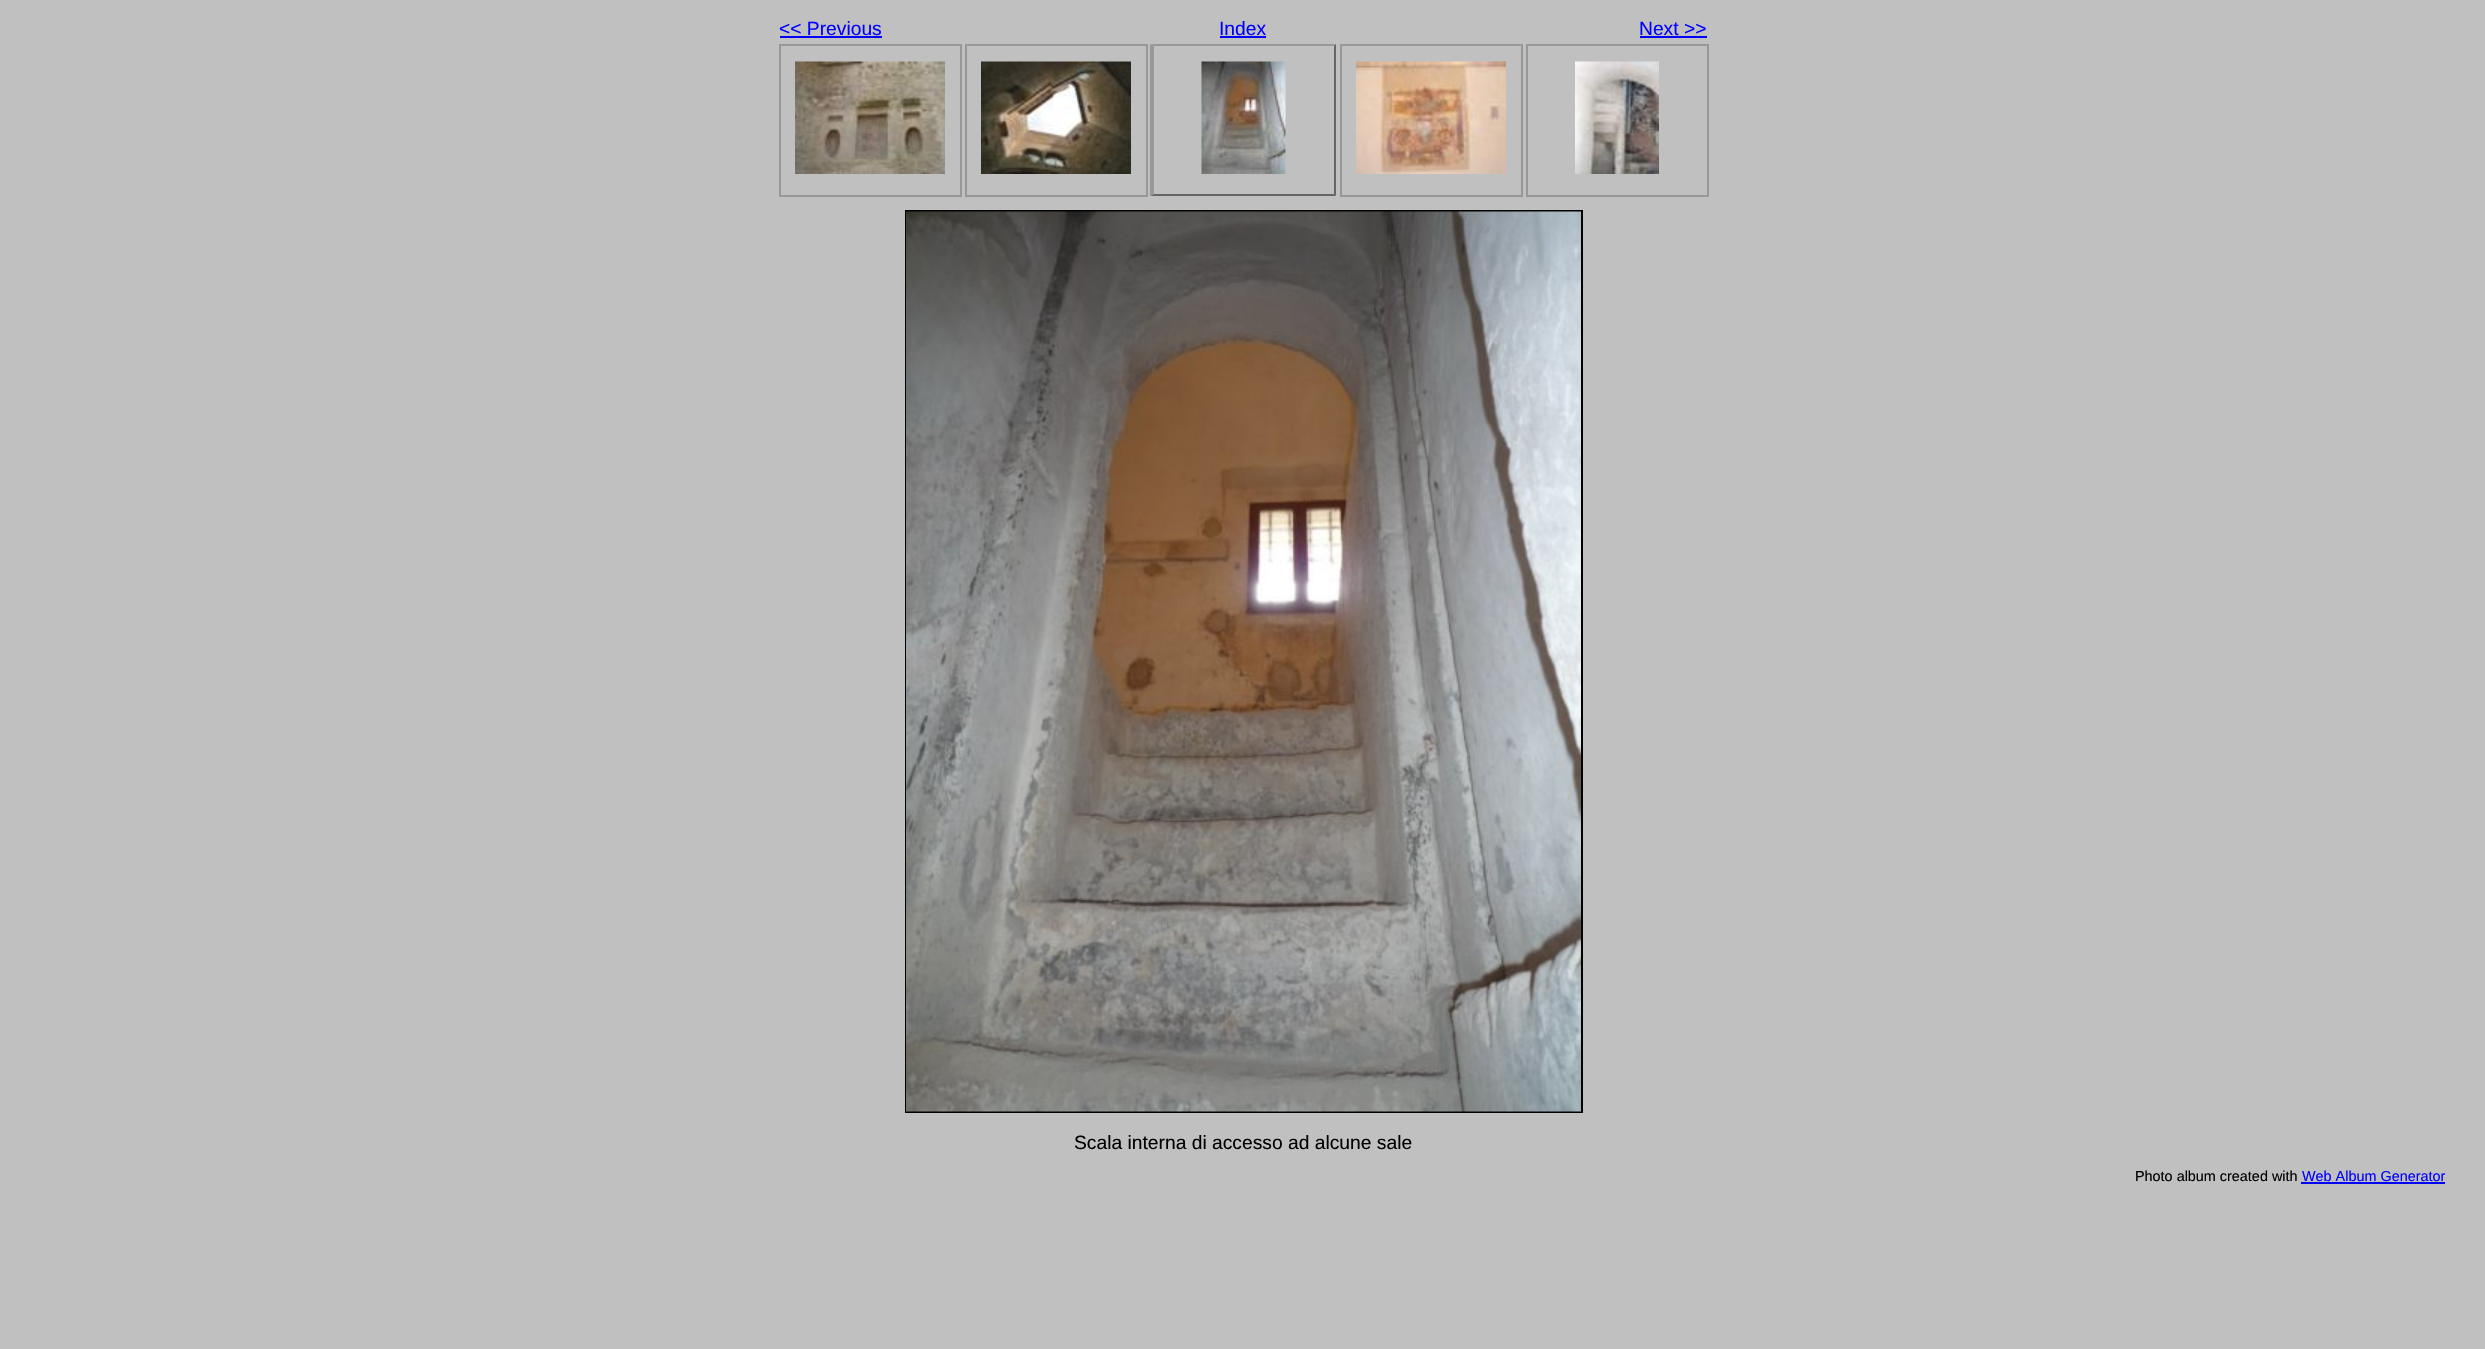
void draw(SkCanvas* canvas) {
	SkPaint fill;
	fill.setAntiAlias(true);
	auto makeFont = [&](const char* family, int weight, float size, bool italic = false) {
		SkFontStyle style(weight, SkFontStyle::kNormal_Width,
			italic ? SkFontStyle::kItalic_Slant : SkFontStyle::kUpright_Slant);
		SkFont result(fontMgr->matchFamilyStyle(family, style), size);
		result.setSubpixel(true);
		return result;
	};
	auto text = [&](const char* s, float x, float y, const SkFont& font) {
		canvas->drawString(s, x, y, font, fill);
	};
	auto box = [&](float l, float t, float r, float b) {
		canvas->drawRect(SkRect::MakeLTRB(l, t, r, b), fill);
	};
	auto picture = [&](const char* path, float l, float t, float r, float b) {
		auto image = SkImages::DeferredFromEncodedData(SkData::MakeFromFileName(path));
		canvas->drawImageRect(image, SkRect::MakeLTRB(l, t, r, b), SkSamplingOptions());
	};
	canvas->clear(0xFFC0C0C0);
	fill.setColor(0xFF0000FF);
	box(780, 36, 882, 38);
	box(1220, 36, 1266, 38);
	box(1640, 36, 1707, 38);
	fill.setStyle(SkPaint::kStroke_Style);
	fill.setStrokeWidth(2);
	fill.setColor(0xFF989898);
	canvas->drawRect(SkRect::MakeLTRB(780, 45, 961, 196), fill);
	picture("image0.png", 795, 61, 945, 174);
	canvas->drawRect(SkRect::MakeLTRB(966, 45, 1147, 196), fill);
	picture("image1.png", 981, 61, 1131, 174);
	fill.setStyle(SkPaint::kFill_Style);
	canvas->drawPath(SkPathBuilder().moveTo(1150, 44).lineTo(1336, 44).lineTo(1334, 46).lineTo(1154, 46).close().detach(), fill);
	fill.setColor(0xFF656565);
	canvas->drawPath(SkPathBuilder().moveTo(1336, 44).lineTo(1336, 196).lineTo(1334, 194).lineTo(1334, 46).close().detach(), fill);
	canvas->drawPath(SkPathBuilder().moveTo(1336, 196).lineTo(1150, 196).lineTo(1154, 194).lineTo(1334, 194).close().detach(), fill);
	fill.setColor(0xFF989898);
	canvas->drawPath(SkPathBuilder().moveTo(1150, 196).lineTo(1150, 44).lineTo(1154, 46).lineTo(1154, 194).close().detach(), fill);
	picture("image2.png", 1201, 61, 1286, 174);
	fill.setStyle(SkPaint::kStroke_Style);
	canvas->drawRect(SkRect::MakeLTRB(1341, 45, 1522, 196), fill);
	picture("image3.png", 1356, 61, 1506, 174);
	canvas->drawRect(SkRect::MakeLTRB(1527, 45, 1708, 196), fill);
	picture("image4.png", 1575, 61, 1659, 174);
	fill.setColor(0xFF000000);
	canvas->drawRect(SkRect::MakeLTRB(906, 211, 1582, 1112), fill);
	picture("image5.png", 906, 211, 1581, 1112);
	fill.setStyle(SkPaint::kFill_Style);
	fill.setColor(0xFF0000FF);
	box(2301, 1182, 2445, 1184);
	auto font1 = makeFont("Liberation Sans", 400, 19.25f);
	text("<< Previous", 779, 35, font1);
	text("Index", 1219, 35, font1);
	text("Next >>", 1639, 35, font1);
	fill.setColor(0xFF000000);
	text("Scala interna di accesso ad alcune sale", 1074, 1149, font1);
	auto font2 = makeFont("Liberation Sans", 400, 14.4f);
	text("Photo album created with", 2135, 1181, font2);
	fill.setColor(0xFF0000FF);
	text("Web Album Generator", 2302, 1181, font2);
}
